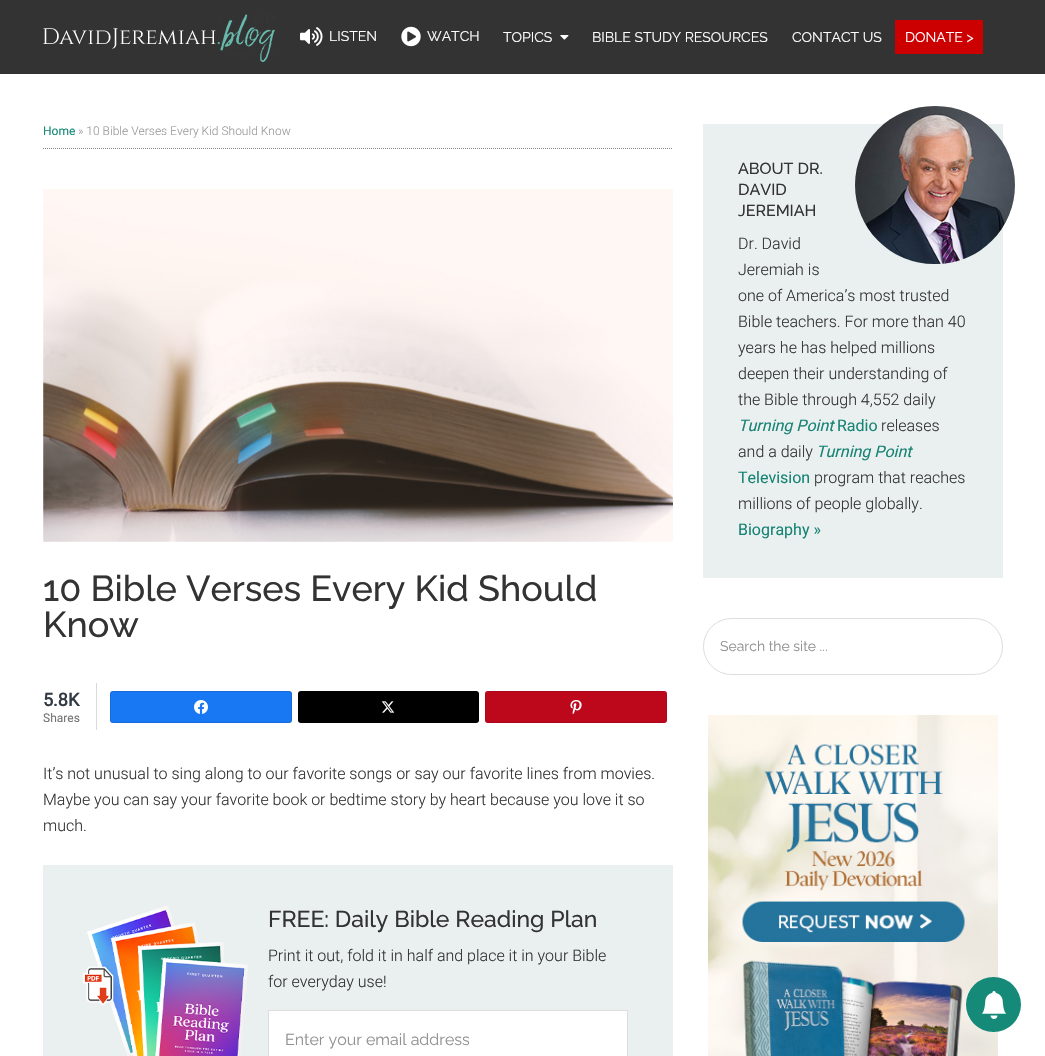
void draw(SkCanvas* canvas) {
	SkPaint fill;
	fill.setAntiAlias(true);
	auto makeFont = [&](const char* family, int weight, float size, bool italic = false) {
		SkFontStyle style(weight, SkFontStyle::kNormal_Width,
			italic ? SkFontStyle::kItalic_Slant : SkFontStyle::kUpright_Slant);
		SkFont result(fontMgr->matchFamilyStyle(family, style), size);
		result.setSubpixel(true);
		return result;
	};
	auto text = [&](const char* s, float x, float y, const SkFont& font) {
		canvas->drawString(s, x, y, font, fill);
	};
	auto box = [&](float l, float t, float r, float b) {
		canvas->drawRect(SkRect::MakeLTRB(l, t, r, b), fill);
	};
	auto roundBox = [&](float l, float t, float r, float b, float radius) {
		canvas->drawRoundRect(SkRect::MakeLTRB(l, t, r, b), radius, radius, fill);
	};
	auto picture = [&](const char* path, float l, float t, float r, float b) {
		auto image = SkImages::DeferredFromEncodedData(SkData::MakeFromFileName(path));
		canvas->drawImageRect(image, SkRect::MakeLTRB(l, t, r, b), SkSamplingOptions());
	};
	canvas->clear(0xFFFFFFFF);
	fill.setColor(0xFF333333);
	box(0, 0, 1045, 74);
	picture("image0.png", 43, 14, 275, 62);
	picture("image1.png", 300, 27, 323, 46);
	picture("image2.png", 401, 26, 421, 47);
	picture("image3.png", 560, 35, 569, 40);
	fill.setColor(0xFFCC0000);
	box(895, 20, 983, 54);
	fill.setStyle(SkPaint::kStroke_Style);
	fill.setStrokeWidth(1);
	fill.setColor(0xFF888888);
	fill.setPathEffect(SkDashPathEffect::Make({{1, 1}}, 0));
	canvas->drawPath(SkPathBuilder().moveTo(43, 148.5f).lineTo(673, 148.5f).detach(), fill);
	fill.setPathEffect(nullptr);
	picture("image4.png", 43, 189, 673, 542);
	fill.setStyle(SkPaint::kFill_Style);
	fill.setColor(0xFFD9D9D9);
	box(96, 683, 97, 730);
	fill.setColor(0xFF1877F2);
	roundBox(110, 691, 292, 723, 3);
	fill.setStyle(SkPaint::kStroke_Style);
	fill.setColor(0x1A000000);
	canvas->drawRoundRect(SkRect::MakeLTRB(110.5f, 691.5f, 291.5f, 722.5f), 2.5f, 2.5f, fill);
	picture("image5.png", 194, 700, 208, 714);
	fill.setStyle(SkPaint::kFill_Style);
	fill.setColor(0xFF000000);
	roundBox(298, 691, 479, 723, 3);
	fill.setStyle(SkPaint::kStroke_Style);
	fill.setColor(0x1A000000);
	canvas->drawRoundRect(SkRect::MakeLTRB(298.5f, 691.5f, 478.5f, 722.5f), 2.5f, 2.5f, fill);
	picture("image6.png", 381, 701, 395, 713);
	fill.setStyle(SkPaint::kFill_Style);
	fill.setColor(0xFFBD081C);
	roundBox(485, 691, 667, 723, 3);
	fill.setStyle(SkPaint::kStroke_Style);
	fill.setColor(0x1A000000);
	canvas->drawRoundRect(SkRect::MakeLTRB(485.5f, 691.5f, 666.5f, 722.5f), 2.5f, 2.5f, fill);
	picture("image7.png", 570, 700, 582, 714);
	fill.setStyle(SkPaint::kFill_Style);
	fill.setColor(0xFFEAF0EF);
	box(43, 865, 673, 1056);
	picture("image8.png", 83, 905, 248, 1056);
	fill.setColor(0xFFFFFFFF);
	canvas->drawRect(SkRect::MakeLTRB(268.5f, 1010.5f, 627.5f, 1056.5f), fill);
	fill.setStyle(SkPaint::kStroke_Style);
	fill.setColor(0xFFDDDDDD);
	canvas->drawRect(SkRect::MakeLTRB(268.5f, 1010.5f, 627.5f, 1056.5f), fill);
	fill.setStyle(SkPaint::kFill_Style);
	fill.setColor(0xFFEAF0EF);
	box(703, 124, 1003, 578);
	picture("image9.png", 855, 106, 1015, 264);
	fill.setStyle(SkPaint::kStroke_Style);
	fill.setColor(0xFFDDDDDD);
	canvas->drawRoundRect(SkRect::MakeLTRB(703.5f, 618.5f, 1002.5f, 674.5f), 28, 28, fill);
	picture("image10.png", 708, 715, 998, 1056);
	fill.setStyle(SkPaint::kFill_Style);
	fill.setColor(0xFF158A78);
	canvas->drawCircle(993.5f, 1004.5f, 27.5f, fill);
	picture("image11.png", 981, 991, 1007, 1019);
	auto font1 = makeFont("Raleway", 400, 14);
	fill.setColor(0xFFFFFFFF);
	text("LISTEN", 329, 41, font1);
	text("WATCH", 427, 41, font1);
	text("TOPICS", 503, 42, font1);
	text("BIBLE STUDY RESOURCES", 592, 42, font1);
	text("CONTACT US", 792, 42, font1);
	text("DONATE >", 905, 42, font1);
	auto font2 = makeFont("Roboto", 400, 12);
	fill.setColor(0xFF158A78);
	text("Home", 43, 135, font2);
	auto font3 = makeFont("Roboto", 300, 12);
	fill.setColor(0xFF999999);
	text("» 10 Bible Verses Every Kid Should Know", 78, 135, font3);
	auto font4 = makeFont("Raleway", 500, 36);
	fill.setColor(0xFF333333);
	text("10 Bible Verses Every Kid Should", 43, 601, font4);
	text("Know", 43, 637, font4);
	auto font5 = makeFont("Roboto", 700, 18);
	fill.setColor(0xFF323B43);
	text("5.8K", 43, 706, font5);
	fill.setColor(0xFF737373);
	text("Shares", 43, 722, font2);
	auto font6 = makeFont("Roboto", 300, 16);
	fill.setColor(0xFF333333);
	text("It’s not unusual to sing along to our favorite songs or say our favorite lines from movies.", 43, 779, font6);
	text("Maybe you can say your favorite book or bedtime story by heart because you love it so", 43, 805, font6);
	text("much.", 43, 831, font6);
	auto font7 = makeFont("Raleway", 500, 23);
	text("FREE: Daily Bible Reading Plan", 268, 927, font7);
	text("Print it out, fold it in half and place it in your Bible", 268, 961, font6);
	text("for everyday use!", 268, 987, font6);
	auto font8 = makeFont("Raleway", 400, 16);
	fill.setColor(0xFF919191);
	text("Enter your email address", 285, 1045, font8);
	auto font9 = makeFont("Raleway", 500, 16);
	fill.setColor(0xFF333333);
	text("ABOUT DR.", 738, 174, font9);
	text("DAVID", 738, 195, font9);
	text("JEREMIAH", 738, 216, font9);
	text("Dr. David", 738, 249, font6);
	text("Jeremiah is", 738, 275, font6);
	text("one of America’s most trusted", 738, 301, font6);
	text("Bible teachers. For more than 40", 738, 327, font6);
	text("years he has helped millions", 738, 353, font6);
	text("deepen their understanding of", 738, 379, font6);
	text("the Bible through 4,552 daily", 738, 405, font6);
	auto font10 = makeFont("Roboto", 400, 16, true);
	fill.setColor(0xFF178374);
	text("Turning Point", 738, 431, font10);
	auto font11 = makeFont("Roboto", 400, 16);
	text("Radio", 837, 431, font11);
	fill.setColor(0xFF333333);
	text("releases", 881, 431, font6);
	text("and a daily", 738, 457, font6);
	fill.setColor(0xFF178374);
	text("Turning Point", 816, 457, font10);
	text("Television", 738, 483, font11);
	fill.setColor(0xFF333333);
	text("program that reaches", 814, 483, font6);
	text("millions of people globally.", 738, 509, font6);
	fill.setColor(0xFF178374);
	text("Biography »", 738, 535, font11);
	fill.setColor(0xFF919191);
	text("Search the site ...", 720, 651, font1);
}
